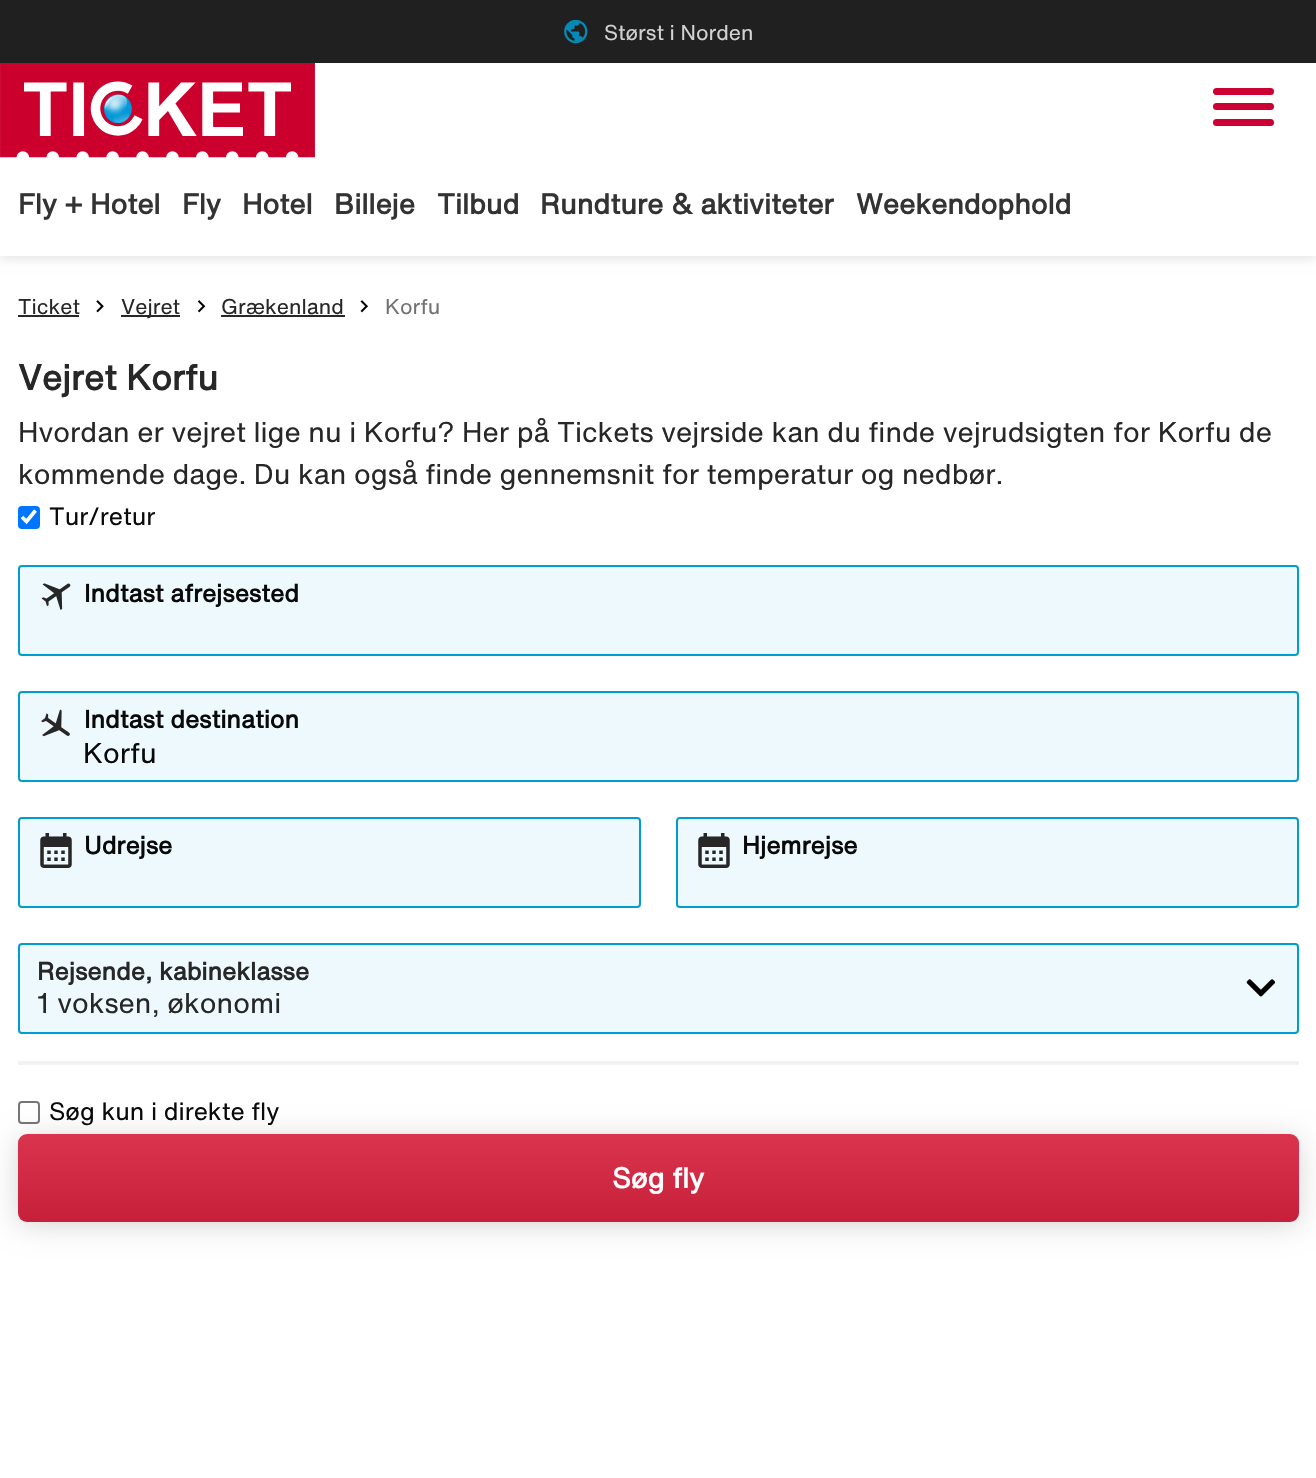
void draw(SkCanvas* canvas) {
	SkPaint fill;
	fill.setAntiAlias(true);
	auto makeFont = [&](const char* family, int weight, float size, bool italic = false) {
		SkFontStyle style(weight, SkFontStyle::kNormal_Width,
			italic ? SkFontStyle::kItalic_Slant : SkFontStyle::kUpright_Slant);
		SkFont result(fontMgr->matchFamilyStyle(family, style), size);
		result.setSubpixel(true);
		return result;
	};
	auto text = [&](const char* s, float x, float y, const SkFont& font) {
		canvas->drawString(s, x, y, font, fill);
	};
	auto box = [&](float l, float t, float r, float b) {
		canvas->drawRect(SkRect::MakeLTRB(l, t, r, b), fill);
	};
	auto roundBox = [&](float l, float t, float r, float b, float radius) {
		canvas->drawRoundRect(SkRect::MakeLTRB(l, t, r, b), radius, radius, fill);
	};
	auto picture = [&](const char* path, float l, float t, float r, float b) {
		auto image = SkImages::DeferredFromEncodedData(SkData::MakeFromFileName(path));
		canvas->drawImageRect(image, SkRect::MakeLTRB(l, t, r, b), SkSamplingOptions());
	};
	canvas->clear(0xFFFFFFFF);
	fill.setColor(0x1A000000);
	fill.setMaskFilter(SkMaskFilter::MakeBlur(kNormal_SkBlurStyle, 5));
	canvas->drawRect(SkRect::MakeLTRB(0, 67, 1316, 259), fill);
	fill.setMaskFilter(nullptr);
	fill.setColor(0xFF202020);
	box(0, 0, 1316, 63);
	picture("image0.png", 564, 19, 588, 44);
	fill.setColor(0xFFFFFFFF);
	box(0, 63, 1316, 256);
	picture("image1.png", 0, 63, 315, 158);
	fill.setColor(0xFFCC0033);
	roundBox(1213, 88, 1274, 95, 3.5f);
	roundBox(1213, 103, 1274, 110, 3.5f);
	roundBox(1213, 119, 1274, 126, 3.5f);
	fill.setColor(0xFF272727);
	box(18, 315, 79, 317);
	picture("image2.png", 96, 300, 104, 313);
	box(121, 315, 180, 317);
	picture("image3.png", 197, 300, 206, 313);
	box(221, 315, 345, 317);
	picture("image4.png", 360, 300, 368, 313);
	fill.setColor(0xFF0075FF);
	roundBox(18, 506, 40, 529, 4);
	fill.setStyle(SkPaint::kStroke_Style);
	fill.setStrokeWidth(3.6f);
	fill.setColor(0xFFFFFFFF);
	canvas->drawPath(SkPathBuilder().moveTo(22, 517).lineTo(26.5f, 521.5f).lineTo(35.5f, 510.5f).detach(), fill);
	fill.setStyle(SkPaint::kFill_Style);
	fill.setColor(0xFFEDF9FD);
	canvas->drawRoundRect(SkRect::MakeLTRB(19, 566, 1298, 655), 3, 3, fill);
	fill.setStyle(SkPaint::kStroke_Style);
	fill.setStrokeWidth(2);
	fill.setColor(0xFF009DD1);
	canvas->drawRoundRect(SkRect::MakeLTRB(19, 566, 1298, 655), 3, 3, fill);
	picture("image5.png", 41, 583, 71, 610);
	fill.setStyle(SkPaint::kFill_Style);
	fill.setColor(0xFFEDF9FD);
	canvas->drawRoundRect(SkRect::MakeLTRB(19, 692, 1298, 781), 3, 3, fill);
	fill.setStyle(SkPaint::kStroke_Style);
	fill.setColor(0xFF009DD1);
	canvas->drawRoundRect(SkRect::MakeLTRB(19, 692, 1298, 781), 3, 3, fill);
	picture("image6.png", 41, 709, 70, 737);
	fill.setStyle(SkPaint::kFill_Style);
	fill.setColor(0xFFEDF9FD);
	canvas->drawRoundRect(SkRect::MakeLTRB(19, 818, 640, 907), 3, 3, fill);
	fill.setStyle(SkPaint::kStroke_Style);
	fill.setColor(0xFF009DD1);
	canvas->drawRoundRect(SkRect::MakeLTRB(19, 818, 640, 907), 3, 3, fill);
	picture("image7.png", 40, 833, 72, 868);
	fill.setStyle(SkPaint::kFill_Style);
	fill.setColor(0xFFEDF9FD);
	canvas->drawRoundRect(SkRect::MakeLTRB(677, 818, 1298, 907), 3, 3, fill);
	fill.setStyle(SkPaint::kStroke_Style);
	fill.setColor(0xFF009DD1);
	canvas->drawRoundRect(SkRect::MakeLTRB(677, 818, 1298, 907), 3, 3, fill);
	picture("image7.png", 698, 833, 730, 868);
	fill.setStyle(SkPaint::kFill_Style);
	fill.setColor(0xFFEDF9FD);
	canvas->drawRoundRect(SkRect::MakeLTRB(19, 944, 1298, 1033), 3, 3, fill);
	fill.setStyle(SkPaint::kStroke_Style);
	fill.setColor(0xFF009DD1);
	canvas->drawRoundRect(SkRect::MakeLTRB(19, 944, 1298, 1033), 3, 3, fill);
	picture("image8.png", 1246, 979, 1275, 997);
	fill.setStyle(SkPaint::kFill_Style);
	fill.setColor(0xFFF2F2F2);
	box(18, 1061, 1299, 1065);
	fill.setStyle(SkPaint::kStroke_Style);
	fill.setColor(0xFF767676);
	canvas->drawRoundRect(SkRect::MakeLTRB(19, 1102, 39, 1123), 3, 3, fill);
	fill.setStyle(SkPaint::kFill_Style);
	fill.setColor(0x29000000);
	fill.setMaskFilter(SkMaskFilter::MakeBlur(kNormal_SkBlurStyle, 14));
	canvas->drawRoundRect(SkRect::MakeLTRB(18, 1138, 1299, 1225), 9, 9, fill);
	fill.setMaskFilter(nullptr);
	{
		const SkColor colors[] = {0xFFDB344E, 0xFFC7203B};
		const float stops[] = {0, 0.98f};
		const SkPoint ends[] = {{658, 1134}, {658, 1222}};
		fill.setShader(SkGradientShader::MakeLinear(ends, colors, stops, 2, SkTileMode::kClamp));
		fill.setAlpha(255);
	}
	roundBox(18, 1134, 1299, 1222, 9);
	auto font1 = makeFont("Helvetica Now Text", 400, 21);
	fill.setShader(nullptr);
	fill.setColor(0xFFD2D2D2);
	text("Størst i Norden", 604, 40, font1);
	auto font2 = makeFont("Helvetica Now Text", 700, 28);
	fill.setColor(0xFF333333);
	text("Fly + Hotel", 18, 214, font2);
	text("Fly", 182, 214, font2);
	text("Hotel", 242, 214, font2);
	text("Billeje", 334, 214, font2);
	text("Tilbud", 437, 214, font2);
	text("Rundture & aktiviteter", 540, 214, font2);
	text("Weekendophold", 856, 214, font2);
	fill.setColor(0xFF272727);
	text("Ticket", 18, 314, font1);
	text("Vejret", 121, 314, font1);
	text("Grækenland", 221, 314, font1);
	fill.setColor(0xFF727272);
	text("Korfu", 385, 314, font1);
	auto font3 = makeFont("Helvetica Now Text", 700, 35);
	fill.setColor(0xFF272727);
	text("Vejret Korfu", 18, 390, font3);
	auto font4 = makeFont("Helvetica Now Text", 400, 28);
	text("Hvordan er vejret lige nu i Korfu? Her på Tickets vejrside kan du finde vejrudsigten for Korfu de", 18, 442, font4);
	text("kommende dage. Du kan også finde gennemsnit for temperatur og nedbør.", 18, 484, font4);
	auto font5 = makeFont("Helvetica Now Text", 400, 24.5f);
	fill.setColor(0xFF0A0A0A);
	text("Tur/retur", 49, 525, font5);
	auto font6 = makeFont("Helvetica Now Text", 700, 24.5f);
	text("Indtast afrejsested", 84, 602, font6);
	text("Indtast destination", 84, 728, font6);
	text("Korfu", 83, 763, font4);
	text("Udrejse", 84, 854, font6);
	text("Hjemrejse", 742, 854, font6);
	fill.setColor(0xFF272727);
	text("Rejsende, kabineklasse", 37, 980, font6);
	text("1 voksen, økonomi", 37, 1013, font4);
	fill.setColor(0xFF0A0A0A);
	text("Søg kun i direkte fly", 49, 1120, font5);
	fill.setColor(0xFFFFFFFF);
	text("Søg fly", 612, 1188, font2);
}
